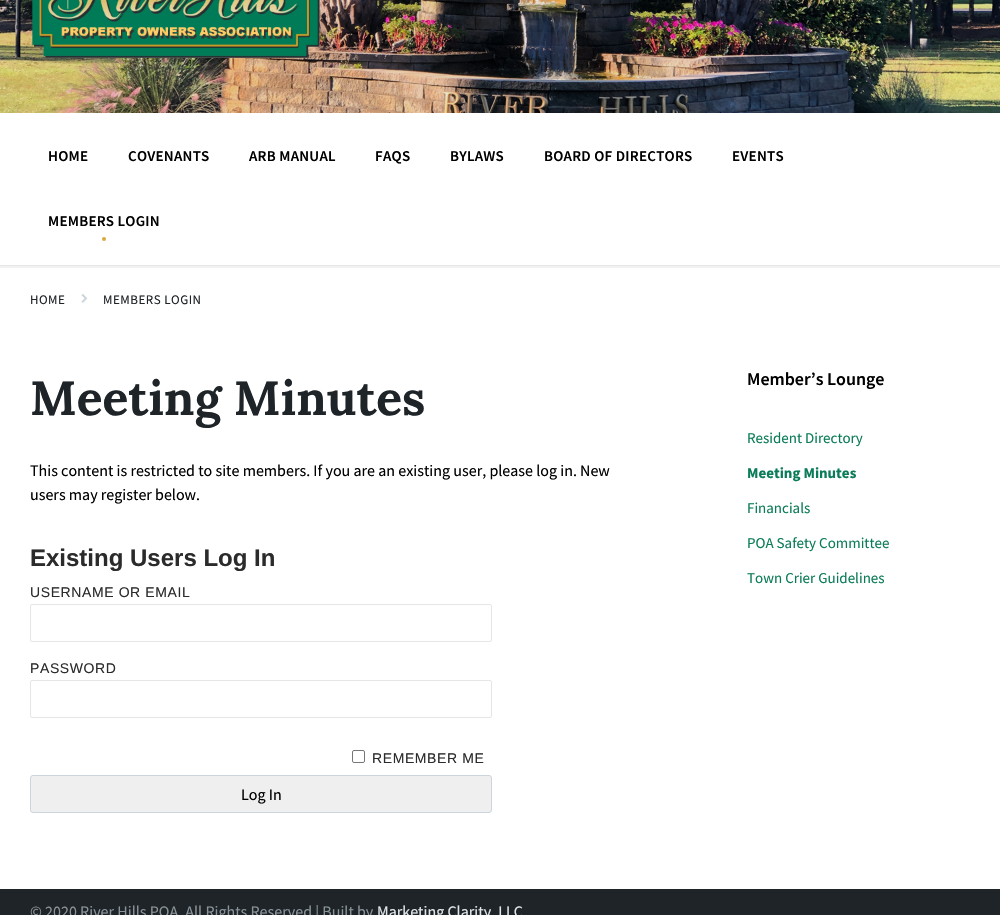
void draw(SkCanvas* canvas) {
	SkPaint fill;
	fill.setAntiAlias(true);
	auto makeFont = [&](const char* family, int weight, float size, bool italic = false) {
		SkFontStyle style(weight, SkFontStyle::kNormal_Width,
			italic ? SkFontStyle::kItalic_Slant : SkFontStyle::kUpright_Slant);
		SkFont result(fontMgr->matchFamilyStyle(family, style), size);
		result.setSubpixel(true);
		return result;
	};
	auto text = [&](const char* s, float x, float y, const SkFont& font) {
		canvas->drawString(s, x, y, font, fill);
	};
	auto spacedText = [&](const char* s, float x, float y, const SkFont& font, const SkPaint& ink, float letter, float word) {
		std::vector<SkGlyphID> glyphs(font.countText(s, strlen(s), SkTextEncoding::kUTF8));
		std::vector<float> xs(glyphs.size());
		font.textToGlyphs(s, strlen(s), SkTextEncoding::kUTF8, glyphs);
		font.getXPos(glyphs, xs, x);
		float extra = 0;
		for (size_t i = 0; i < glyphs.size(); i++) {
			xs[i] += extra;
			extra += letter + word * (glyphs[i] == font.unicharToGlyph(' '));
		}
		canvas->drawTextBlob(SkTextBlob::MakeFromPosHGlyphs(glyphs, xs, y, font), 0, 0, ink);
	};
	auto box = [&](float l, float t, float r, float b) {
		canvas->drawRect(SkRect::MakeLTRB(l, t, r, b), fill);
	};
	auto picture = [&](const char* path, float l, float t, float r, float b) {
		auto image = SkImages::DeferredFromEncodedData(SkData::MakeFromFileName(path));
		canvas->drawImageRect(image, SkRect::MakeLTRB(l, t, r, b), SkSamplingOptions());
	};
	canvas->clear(0xFFFFFFFF);
	fill.setStyle(SkPaint::kStroke_Style);
	fill.setStrokeWidth(2);
	fill.setColor(0xFFF2F2F2);
	canvas->drawRect(SkRect::MakeLTRB(-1, 112, 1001, 267), fill);
	picture("image0.png", 0, 0, 1000, 113);
	picture("image1.png", 32, 0, 320, 58);
	fill.setStyle(SkPaint::kFill_Style);
	fill.setColor(0xFFE6E6E6);
	box(0, 265, 1000, 266);
	fill.setColor(0xFFD8AA3A);
	canvas->drawCircle(104, 239, 2, fill);
	picture("image2.png", 81, 294, 88, 303);
	fill.setStyle(SkPaint::kStroke_Style);
	fill.setStrokeWidth(1);
	fill.setColor(0xFFE6E6E6);
	canvas->drawRoundRect(SkRect::MakeLTRB(30.5f, 604.5f, 491.5f, 641.5f), 1.5f, 1.5f, fill);
	canvas->drawRoundRect(SkRect::MakeLTRB(30.5f, 680.5f, 491.5f, 717.5f), 1.5f, 1.5f, fill);
	fill.setColor(0xFF767676);
	canvas->drawRoundRect(SkRect::MakeLTRB(352.5f, 750.5f, 364.5f, 762.5f), 1.5f, 1.5f, fill);
	fill.setStyle(SkPaint::kFill_Style);
	fill.setColor(0xFFEFEFEF);
	canvas->drawRoundRect(SkRect::MakeLTRB(30.5f, 775.5f, 491.5f, 812.5f), 2.5f, 2.5f, fill);
	fill.setStyle(SkPaint::kStroke_Style);
	fill.setColor(0xFFCCD5DB);
	canvas->drawRoundRect(SkRect::MakeLTRB(30.5f, 775.5f, 491.5f, 812.5f), 2.5f, 2.5f, fill);
	fill.setStyle(SkPaint::kFill_Style);
	fill.setColor(0xFF1E2427);
	box(0, 889, 1000, 915);
	auto font1 = makeFont("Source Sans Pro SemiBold", 600, 15);
	fill.setColor(0xFF000000);
	spacedText("HOME", 48, 161, font1, fill, 0.25f, 0);
	spacedText("COVENANTS", 128, 161, font1, fill, 0.25f, 0);
	spacedText("ARB MANUAL", 249, 161, font1, fill, 0.25f, 0);
	spacedText("FAQS", 375, 161, font1, fill, 0.25f, 0);
	spacedText("BYLAWS", 450, 161, font1, fill, 0.25f, 0);
	spacedText("BOARD OF DIRECTORS", 544, 161, font1, fill, 0.25f, 0);
	spacedText("EVENTS", 732, 161, font1, fill, 0.25f, 0);
	spacedText("MEMBERS LOGIN", 48, 226, font1, fill, 0.25f, 0);
	auto font2 = makeFont("Source Sans Pro", 400, 13);
	fill.setColor(0xFF1E2427);
	spacedText("HOME", 30, 304, font2, fill, 0.5f, 0);
	spacedText("MEMBERS LOGIN", 103, 304, font2, fill, 0.5f, 0);
	auto font3 = makeFont("Lora", 700, 48);
	text("Meeting Minutes", 30, 415, font3);
	auto font4 = makeFont("Source Sans Pro", 400, 16);
	fill.setColor(0xFF000000);
	text("This content is restricted to site members. If you are an existing user, please log in. New", 30, 476, font4);
	text("users may register below.", 30, 500, font4);
	auto font5 = makeFont("Liberation Sans", 700, 24);
	fill.setColor(0xFF2B2B2B);
	text("Existing Users Log In", 30, 566, font5);
	auto font6 = makeFont("Liberation Sans", 400, 14);
	spacedText("USERNAME OR EMAIL", 30, 597, font6, fill, 0.6f, 0);
	spacedText("PASSWORD", 30, 673, font6, fill, 0.6f, 0);
	spacedText("REMEMBER ME", 372, 763, font6, fill, 0.6f, 0);
	fill.setColor(0xFF000000);
	text("Log In", 241, 800, font4);
	auto font7 = makeFont("Source Sans Pro SemiBold", 600, 18);
	text("Member’s Lounge", 747, 385, font7);
	auto font8 = makeFont("Source Sans Pro", 400, 15);
	fill.setColor(0xFF0B7C59);
	text("Resident Directory", 747, 443, font8);
	auto font9 = makeFont("Source Sans Pro", 700, 15);
	text("Meeting Minutes", 747, 478, font9);
	text("Financials", 747, 513, font8);
	text("POA Safety Committee", 747, 548, font8);
	text("Town Crier Guidelines", 747, 583, font8);
	fill.setColor(0xFF8A949B);
	text("© 2020 River Hills POA. All Rights Reserved | Built by", 30, 917, font4);
	fill.setColor(0xFFE1E7EC);
	text("Marketing Clarity, LLC", 377, 917, font4);
}
